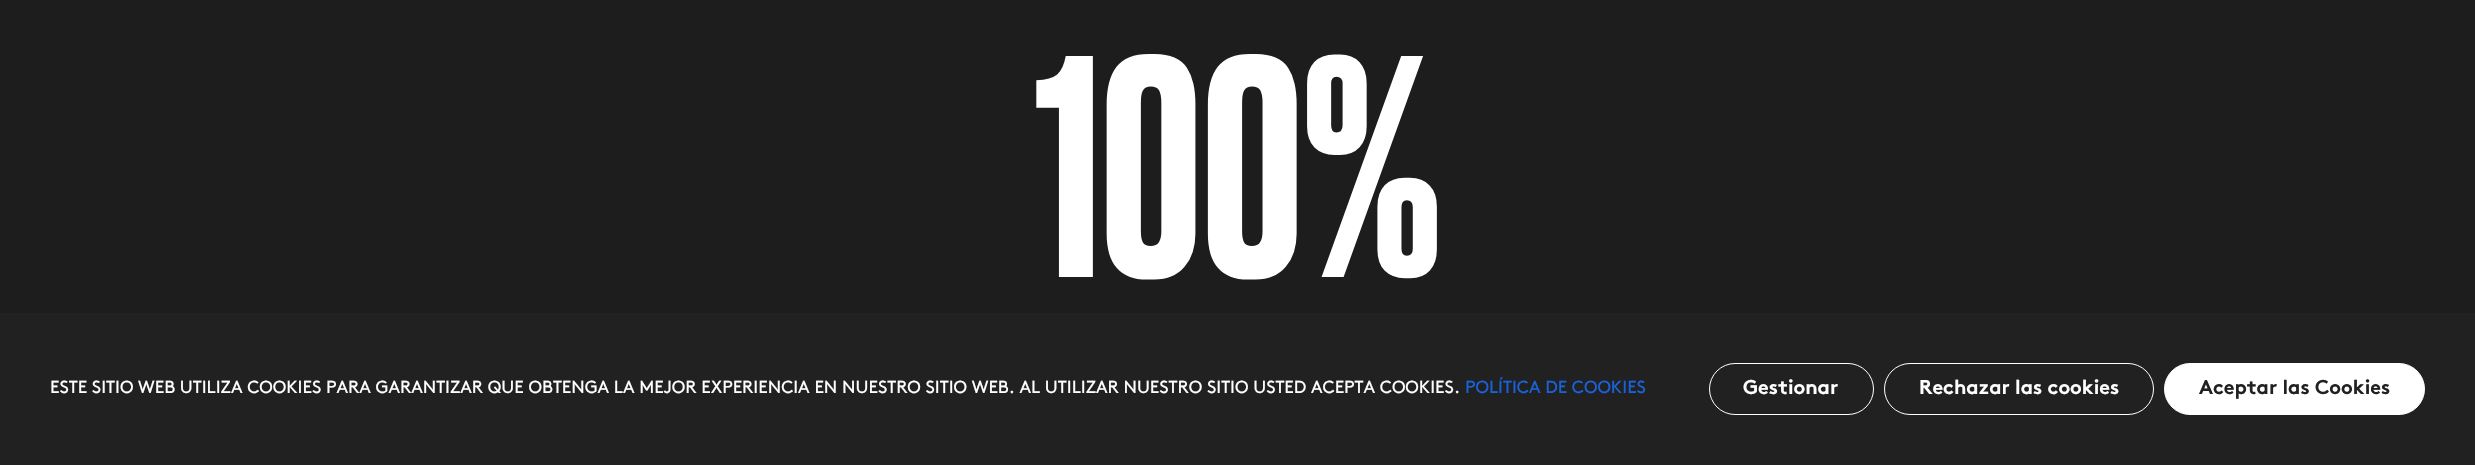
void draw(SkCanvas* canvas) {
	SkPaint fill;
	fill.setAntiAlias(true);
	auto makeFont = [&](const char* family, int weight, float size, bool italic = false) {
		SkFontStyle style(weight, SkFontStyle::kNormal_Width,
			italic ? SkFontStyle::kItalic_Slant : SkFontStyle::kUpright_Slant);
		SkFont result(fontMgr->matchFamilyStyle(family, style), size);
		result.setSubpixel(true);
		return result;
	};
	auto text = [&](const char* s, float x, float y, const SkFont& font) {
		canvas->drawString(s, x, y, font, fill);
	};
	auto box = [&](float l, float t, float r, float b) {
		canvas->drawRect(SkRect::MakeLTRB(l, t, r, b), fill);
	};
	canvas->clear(0xFF1D1D1D);
	fill.setColor(0xFF212121);
	box(0, 313, 2475, 465);
	fill.setStyle(SkPaint::kStroke_Style);
	fill.setStrokeWidth(1);
	fill.setColor(0xFFFFFFFF);
	canvas->drawRoundRect(SkRect::MakeLTRB(1709.5f, 363.5f, 1873.5f, 414.5f), 25.5f, 25.5f, fill);
	canvas->drawRoundRect(SkRect::MakeLTRB(1884.5f, 363.5f, 2153.5f, 414.5f), 25.5f, 25.5f, fill);
	fill.setStyle(SkPaint::kFill_Style);
	canvas->drawRoundRect(SkRect::MakeLTRB(2164.5f, 363.5f, 2424.5f, 414.5f), 25.5f, 25.5f, fill);
	fill.setStyle(SkPaint::kStroke_Style);
	canvas->drawRoundRect(SkRect::MakeLTRB(2164.5f, 363.5f, 2424.5f, 414.5f), 25.5f, 25.5f, fill);
	auto font1 = makeFont("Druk", 500, 297);
	fill.setStyle(SkPaint::kFill_Style);
	text("100%", 1034, 277, font1);
	auto font2 = makeFont("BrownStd", 400, 17.5f);
	text("ESTE SITIO WEB UTILIZA COOKIES PARA GARANTIZAR QUE OBTENGA LA MEJOR EXPERIENCIA EN NUESTRO SITIO WEB. AL UTILIZAR NUESTRO SITIO USTED ACEPTA COOKIES.", 50, 393, font2);
	fill.setColor(0xFF1863DC);
	text("POLÍTICA DE COOKIES", 1465, 393, font2);
	auto font3 = makeFont("BrownStd", 700, 20);
	fill.setColor(0xFFFFFFFF);
	text("Gestionar", 1743, 394, font3);
	text("Rechazar las cookies", 1919, 394, font3);
	fill.setColor(0xFF212121);
	text("Aceptar las Cookies", 2199, 394, font3);
}
